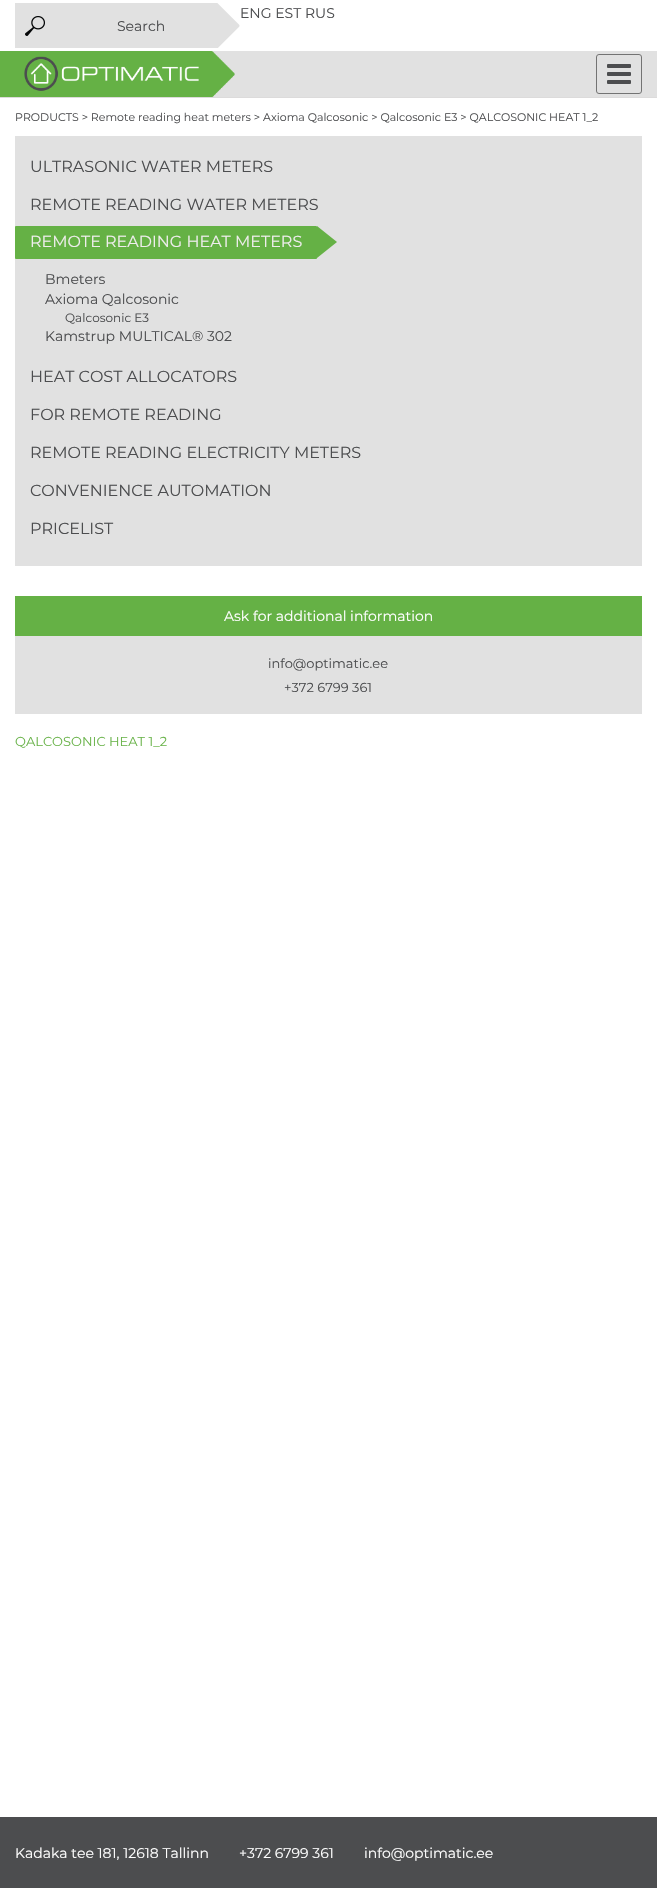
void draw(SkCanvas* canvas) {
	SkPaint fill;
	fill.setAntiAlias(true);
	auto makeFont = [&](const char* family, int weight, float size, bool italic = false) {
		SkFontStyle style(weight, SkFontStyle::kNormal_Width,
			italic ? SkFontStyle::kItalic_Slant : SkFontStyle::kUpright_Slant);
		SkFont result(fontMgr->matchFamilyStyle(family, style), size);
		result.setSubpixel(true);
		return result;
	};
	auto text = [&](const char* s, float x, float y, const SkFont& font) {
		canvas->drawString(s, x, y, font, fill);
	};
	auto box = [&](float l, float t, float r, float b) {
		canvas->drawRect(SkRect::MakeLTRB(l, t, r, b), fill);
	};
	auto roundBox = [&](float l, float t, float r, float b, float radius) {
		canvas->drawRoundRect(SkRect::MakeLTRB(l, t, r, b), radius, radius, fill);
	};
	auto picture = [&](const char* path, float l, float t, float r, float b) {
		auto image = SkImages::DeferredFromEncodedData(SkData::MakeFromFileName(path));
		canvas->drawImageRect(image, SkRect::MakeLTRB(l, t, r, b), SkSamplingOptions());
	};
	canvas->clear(0xFFFFFFFF);
	picture("image0.png", 15, 3, 240, 48);
	picture("image1.png", 25, 16, 45, 36);
	picture("image2.png", 0, 51, 657, 97);
	fill.setColor(0xFFDCDBDB);
	box(0, 97, 657, 98);
	picture("image3.png", 24, 51, 235, 97);
	fill.setStyle(SkPaint::kStroke_Style);
	fill.setStrokeWidth(1);
	fill.setColor(0xFF737373);
	canvas->drawRoundRect(SkRect::MakeLTRB(596.5f, 54.5f, 641.5f, 93.5f), 2.5f, 2.5f, fill);
	picture("image4.png", 607, 64, 631, 84);
	fill.setStyle(SkPaint::kFill_Style);
	fill.setColor(0xFFE1E1E1);
	box(15, 136, 642, 566);
	fill.setColor(0xFF65B145);
	roundBox(15, 226, 317, 259, 1);
	canvas->drawPath(SkPathBuilder().moveTo(317, 258).lineTo(317, 226).lineTo(337, 242).close().detach(), fill);
	box(15, 596, 642, 636);
	fill.setColor(0xFFE1E1E1);
	box(15, 636, 642, 714);
	fill.setColor(0xFF4C4D4F);
	box(0, 1817, 657, 1888);
	auto font1 = makeFont("Montserrat", 400, 14);
	text("ENG EST RUS", 240, 18, font1);
	text("Search", 117, 31, font1);
	auto font2 = makeFont("Montserrat", 400, 11);
	text("PRODUCTS > Remote reading heat meters > Axioma Qalcosonic > Qalcosonic E3 > QALCOSONIC HEAT 1_2", 15, 121, font2);
	auto font3 = makeFont("Montserrat", 400, 16);
	text("ULTRASONIC WATER METERS", 30, 172, font3);
	text("REMOTE READING WATER METERS", 30, 210, font3);
	fill.setColor(0xFFEFEDED);
	text("REMOTE READING HEAT METERS", 30, 247, font3);
	fill.setColor(0xFF4C4D4F);
	text("Bmeters", 45, 284, font1);
	text("Axioma Qalcosonic", 45, 304, font1);
	auto font4 = makeFont("Montserrat", 400, 12);
	text("Qalcosonic E3", 65, 322, font4);
	text("Kamstrup MULTICAL® 302", 45, 341, font1);
	text("HEAT COST ALLOCATORS", 30, 382, font3);
	text("FOR REMOTE READING", 30, 420, font3);
	text("REMOTE READING ELECTRICITY METERS", 30, 458, font3);
	text("CONVENIENCE AUTOMATION", 30, 496, font3);
	text("PRICELIST", 30, 534, font3);
	fill.setColor(0xFFFFFFFF);
	text("Ask for additional information", 224, 621, font1);
	auto font5 = makeFont("Montserrat", 400, 13);
	fill.setColor(0xFF4C4D4F);
	text("info@optimatic.ee", 268, 668, font5);
	text("+372 6799 361", 284, 692, font5);
	fill.setColor(0xFF6BB44C);
	text("QALCOSONIC HEAT 1_2", 15, 746, font5);
	fill.setColor(0xFFFFFFFF);
	text("Kadaka tee 181, 12618 Tallinn", 15, 1858, font1);
	text("+372 6799 361", 239, 1858, font1);
	text("info@optimatic.ee", 364, 1858, font1);
}
